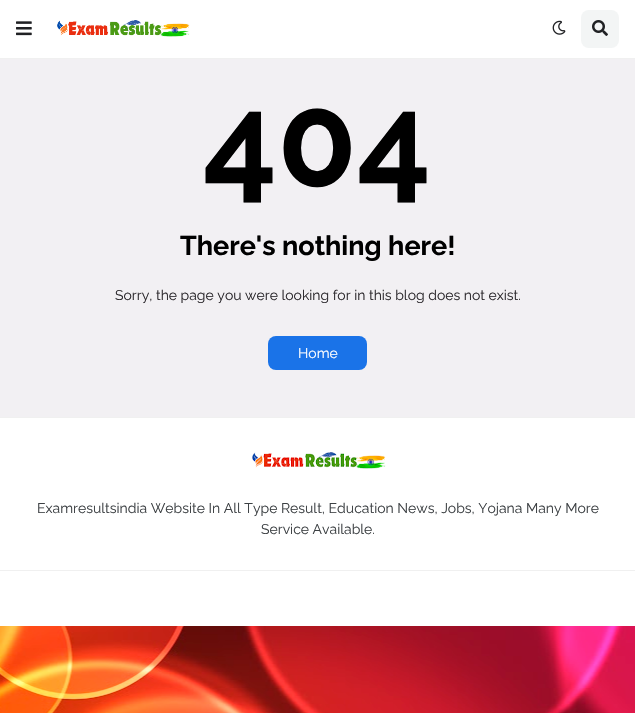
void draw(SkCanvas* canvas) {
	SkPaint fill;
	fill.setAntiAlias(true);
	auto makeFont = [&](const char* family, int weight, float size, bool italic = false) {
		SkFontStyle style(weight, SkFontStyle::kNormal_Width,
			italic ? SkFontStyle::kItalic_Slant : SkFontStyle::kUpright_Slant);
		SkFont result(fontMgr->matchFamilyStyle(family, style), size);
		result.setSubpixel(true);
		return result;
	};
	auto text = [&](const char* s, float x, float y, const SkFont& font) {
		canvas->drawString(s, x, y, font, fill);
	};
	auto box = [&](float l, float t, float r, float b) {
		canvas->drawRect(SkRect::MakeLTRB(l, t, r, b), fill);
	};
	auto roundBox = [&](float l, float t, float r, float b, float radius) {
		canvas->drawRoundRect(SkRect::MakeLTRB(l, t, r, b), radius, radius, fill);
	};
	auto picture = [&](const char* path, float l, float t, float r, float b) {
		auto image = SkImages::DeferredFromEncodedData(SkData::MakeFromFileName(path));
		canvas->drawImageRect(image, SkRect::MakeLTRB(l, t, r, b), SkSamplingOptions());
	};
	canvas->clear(0xFFFFFFFF);
	picture("image0.png", 0, 626, 635, 713);
	fill.setColor(0xFFF2F0F3);
	box(0, 59, 635, 417);
	fill.setColor(0xFFF0F0F0);
	box(0, 58, 635, 59);
	picture("image1.png", 16, 21, 32, 36);
	picture("image2.png", 57, 20, 190, 37);
	picture("image3.png", 552, 20, 566, 35);
	fill.setColor(0xFFF3F5F5);
	roundBox(581, 10, 619, 48, 8);
	picture("image4.png", 592, 20, 608, 36);
	fill.setColor(0xFF1A73E8);
	roundBox(268, 336, 367, 370, 8);
	fill.setColor(0xFFF0F0F0);
	box(0, 417, 635, 418);
	picture("image5.png", 252, 452, 386, 469);
	box(0, 570, 635, 571);
	auto font1 = makeFont("Raleway", 700, 130);
	fill.setColor(0xFF000000);
	text("404", 203, 186, font1);
	auto font2 = makeFont("Raleway", 700, 27);
	text("There's nothing here!", 180, 255, font2);
	auto font3 = makeFont("Raleway", 400, 14);
	fill.setColor(0xFF2C292D);
	text("Sorry, the page you were looking for in this blog does not exist.", 115, 300, font3);
	fill.setColor(0xFFFFFFFF);
	text("Home", 298, 358, font3);
	fill.setColor(0xFF3C4043);
	text("Examresultsindia Website In All Type Result, Education News, Jobs, Yojana Many More", 37, 513, font3);
	text("Service Available.", 261, 534, font3);
}
